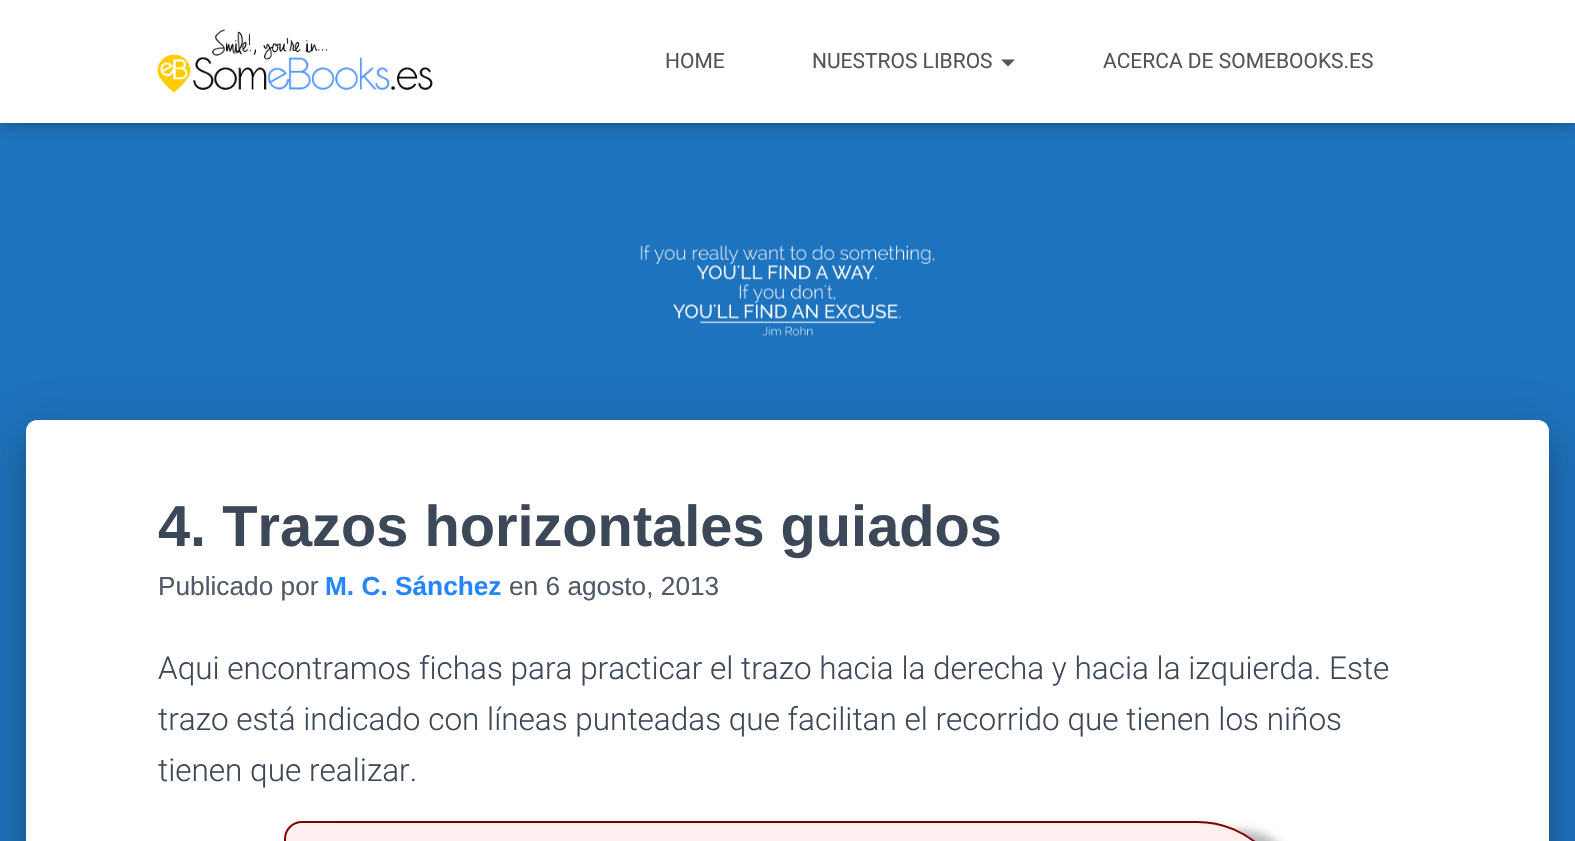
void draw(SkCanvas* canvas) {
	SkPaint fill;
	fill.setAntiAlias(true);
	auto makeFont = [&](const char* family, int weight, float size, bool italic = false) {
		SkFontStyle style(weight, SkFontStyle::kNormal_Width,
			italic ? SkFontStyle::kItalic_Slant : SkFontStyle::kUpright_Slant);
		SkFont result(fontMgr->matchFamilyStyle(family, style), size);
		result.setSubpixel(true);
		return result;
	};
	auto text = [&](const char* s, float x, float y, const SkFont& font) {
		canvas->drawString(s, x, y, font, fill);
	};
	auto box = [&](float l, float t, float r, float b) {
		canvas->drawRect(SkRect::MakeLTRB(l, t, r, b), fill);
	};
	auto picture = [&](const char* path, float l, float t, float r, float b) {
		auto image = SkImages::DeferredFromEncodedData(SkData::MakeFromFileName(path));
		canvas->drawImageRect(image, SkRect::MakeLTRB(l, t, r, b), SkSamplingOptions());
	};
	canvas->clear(0xFF1E73BE);
	fill.setColor(0x1A000000);
	fill.setMaskFilter(SkMaskFilter::MakeBlur(kNormal_SkBlurStyle, 4.5f));
	canvas->drawRect(SkRect::MakeLTRB(4, 11, 1572, 126), fill);
	fill.setMaskFilter(nullptr);
	fill.setColor(0x1F000000);
	fill.setMaskFilter(SkMaskFilter::MakeBlur(kNormal_SkBlurStyle, 9));
	canvas->drawRect(SkRect::MakeLTRB(0, 2, 1575, 124), fill);
	fill.setMaskFilter(nullptr);
	fill.setColor(0x6B000000);
	fill.setMaskFilter(SkMaskFilter::MakeBlur(kNormal_SkBlurStyle, 9));
	canvas->drawRect(SkRect::MakeLTRB(11, 12, 1565, 114), fill);
	fill.setMaskFilter(nullptr);
	fill.setColor(0xFFFFFFFF);
	box(0, 0, 1575, 123);
	picture("image0.png", 157, 29, 433, 93);
	fill.setColor(0xFF555555);
	canvas->drawPath(SkPathBuilder().moveTo(1001, 59.5f).lineTo(1015, 59.5f).lineTo(1008, 66.5f).close().detach(), fill);
	picture("image1.png", 640, 244, 935, 336);
	fill.setColor(0x33000000);
	fill.setMaskFilter(SkMaskFilter::MakeBlur(kNormal_SkBlurStyle, 9));
	canvas->drawRoundRect(SkRect::MakeLTRB(35, 443, 1540, 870), 2, 2, fill);
	fill.setMaskFilter(nullptr);
	fill.setColor(0x1F000000);
	fill.setMaskFilter(SkMaskFilter::MakeBlur(kNormal_SkBlurStyle, 26));
	canvas->drawRoundRect(SkRect::MakeLTRB(18, 422, 1558, 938), 19, 19, fill);
	fill.setMaskFilter(nullptr);
	fill.setColor(0x24000000);
	fill.setMaskFilter(SkMaskFilter::MakeBlur(kNormal_SkBlurStyle, 21));
	canvas->drawRoundRect(SkRect::MakeLTRB(23, 445, 1552, 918), 14, 14, fill);
	fill.setMaskFilter(nullptr);
	fill.setColor(0xFFFFFFFF);
	canvas->drawPath(SkPathBuilder().moveTo(37, 420).lineTo(1538, 420).cubicTo(1544, 420, 1549, 425, 1549, 431).lineTo(1549, 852).lineTo(26, 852).lineTo(26, 431).cubicTo(26, 425, 31, 420, 37, 420).close().detach(), fill);
	fill.setColor(0xFFBBBBBB);
	fill.setMaskFilter(SkMaskFilter::MakeBlur(kNormal_SkBlurStyle, 4.5f));
	canvas->drawRoundRect(SkRect::MakeLTRB(292, 830, 1300, 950), 95, 95, fill);
	fill.setMaskFilter(nullptr);
	fill.setColor(0xFFFFEFEF);
	canvas->drawPath(SkPathBuilder().moveTo(302, 822).lineTo(1197, 822).cubicTo(1249, 822, 1291, 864, 1291, 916).lineTo(1291, 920).cubicTo(1291, 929.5f, 1283.5f, 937, 1274, 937).lineTo(379, 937).cubicTo(327, 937, 285, 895, 285, 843).lineTo(285, 839).cubicTo(285, 829.5f, 292.5f, 822, 302, 822).close().detach(), fill);
	fill.setStyle(SkPaint::kStroke_Style);
	fill.setStrokeWidth(2);
	fill.setColor(0xFF800000);
	canvas->drawPath(SkPathBuilder().moveTo(302, 822).lineTo(1197, 822).cubicTo(1249, 822, 1291, 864, 1291, 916).lineTo(1291, 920).cubicTo(1291, 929.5f, 1283.5f, 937, 1274, 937).lineTo(379, 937).cubicTo(327, 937, 285, 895, 285, 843).lineTo(285, 839).cubicTo(285, 829.5f, 292.5f, 822, 302, 822).close().detach(), fill);
	auto font1 = makeFont("Roboto", 400, 21);
	fill.setStyle(SkPaint::kFill_Style);
	fill.setColor(0xFF555555);
	text("HOME", 665, 68, font1);
	text("NUESTROS LIBROS", 812, 68, font1);
	text("ACERCA DE SOMEBOOKS.ES", 1103, 68, font1);
	auto font2 = makeFont("Liberation Sans", 700, 57.75f);
	fill.setColor(0xFF3C4858);
	text("4. Trazos horizontales guiados", 158, 546, font2);
	auto font3 = makeFont("Liberation Sans", 400, 26.25f);
	fill.setColor(0xFF505A69);
	text("Publicado por", 158, 595, font3);
	auto font4 = makeFont("Liberation Sans", 700, 26.25f);
	fill.setColor(0xFF2486FF);
	text("M. C. Sánchez", 325, 595, font4);
	fill.setColor(0xFF505A69);
	text("en 6 agosto, 2013", 509, 595, font3);
	auto font5 = makeFont("Roboto", 300, 31.5f);
	fill.setColor(0xFF3C4858);
	text("Aqui encontramos fichas para practicar el trazo hacia la derecha y hacia la izquierda. Este", 158, 679, font5);
	text("trazo está indicado con líneas punteadas que facilitan el recorrido que tienen los niños", 158, 730, font5);
	text("tienen que realizar.", 158, 781, font5);
}
